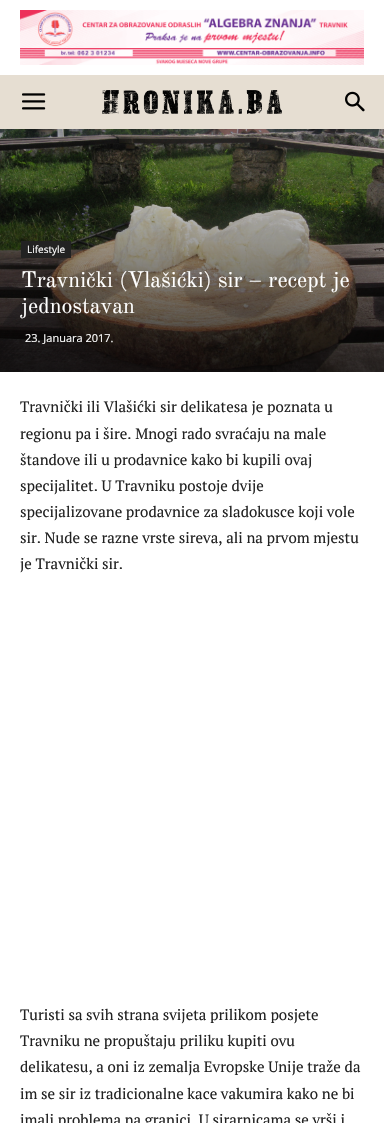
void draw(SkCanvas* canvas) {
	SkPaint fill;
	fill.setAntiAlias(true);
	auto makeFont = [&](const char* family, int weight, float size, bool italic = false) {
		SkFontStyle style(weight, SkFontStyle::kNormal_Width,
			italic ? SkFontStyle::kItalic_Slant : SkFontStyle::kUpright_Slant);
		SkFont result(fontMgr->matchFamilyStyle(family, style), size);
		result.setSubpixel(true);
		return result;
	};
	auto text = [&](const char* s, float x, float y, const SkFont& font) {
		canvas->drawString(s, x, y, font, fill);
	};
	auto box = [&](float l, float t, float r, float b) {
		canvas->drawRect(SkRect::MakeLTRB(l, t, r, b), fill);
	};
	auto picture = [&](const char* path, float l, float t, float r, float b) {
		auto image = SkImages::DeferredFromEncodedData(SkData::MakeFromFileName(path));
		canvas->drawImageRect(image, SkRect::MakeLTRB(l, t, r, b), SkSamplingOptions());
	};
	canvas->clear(0xFFFFFFFF);
	picture("image0.png", 20, 10, 364, 65);
	fill.setColor(0xFFE6DED2);
	box(0, 75, 384, 129);
	picture("image1.png", 22, 93, 46, 110);
	picture("image2.png", 102, 90, 282, 114);
	picture("image3.png", 345, 91, 365, 112);
	picture("image5.png", 0, 129, 384, 372);
	picture("image4.png", 0, 129, 384, 137);
	fill.setColor(0xFF222222);
	box(21, 241, 71, 258);
	auto font1 = makeFont("Open Sans", 400, 10);
	fill.setColor(0xFFFFFFFF);
	text("Lifestyle", 27, 253, font1);
	auto font2 = makeFont("Old Standard TT", 400, 22);
	text("Travnički (Vlašićki) sir – recept je", 21, 287, font2);
	text("jednostavan", 21, 313, font2);
	auto font3 = makeFont("Open Sans", 400, 11);
	text("23. Januara 2017.", 25, 342, font3);
	auto font4 = makeFont("PT Serif", 400, 15);
	fill.setColor(0xFF222222);
	text("Travnički ili Vlašićki sir delikatesa je poznata u", 20, 412, font4);
	text("regionu pa i šire. Mnogi rado svraćaju na male", 20, 439, font4);
	text("štandove ili u prodavnice kako bi kupili ovaj", 20, 465, font4);
	text("specijalitet. U Travniku postoje dvije", 20, 491, font4);
	text("specijalizovane prodavnice za sladokusce koji vole", 20, 517, font4);
	text("sir. Nude se razne vrste sireva, ali na prvom mjestu", 20, 543, font4);
	text("je Travnički sir.", 20, 569, font4);
	text("Turisti sa svih strana svijeta prilikom posjete", 20, 1020, font4);
	text("Travniku ne propuštaju priliku kupiti ovu", 20, 1046, font4);
	text("delikatesu, a oni iz zemalja Evropske Unije traže da", 20, 1072, font4);
	text("im se sir iz tradicionalne kace vakumira kako ne bi", 20, 1099, font4);
	text("imali problema na granici. U sirarnicama se vrši i", 20, 1125, font4);
}
